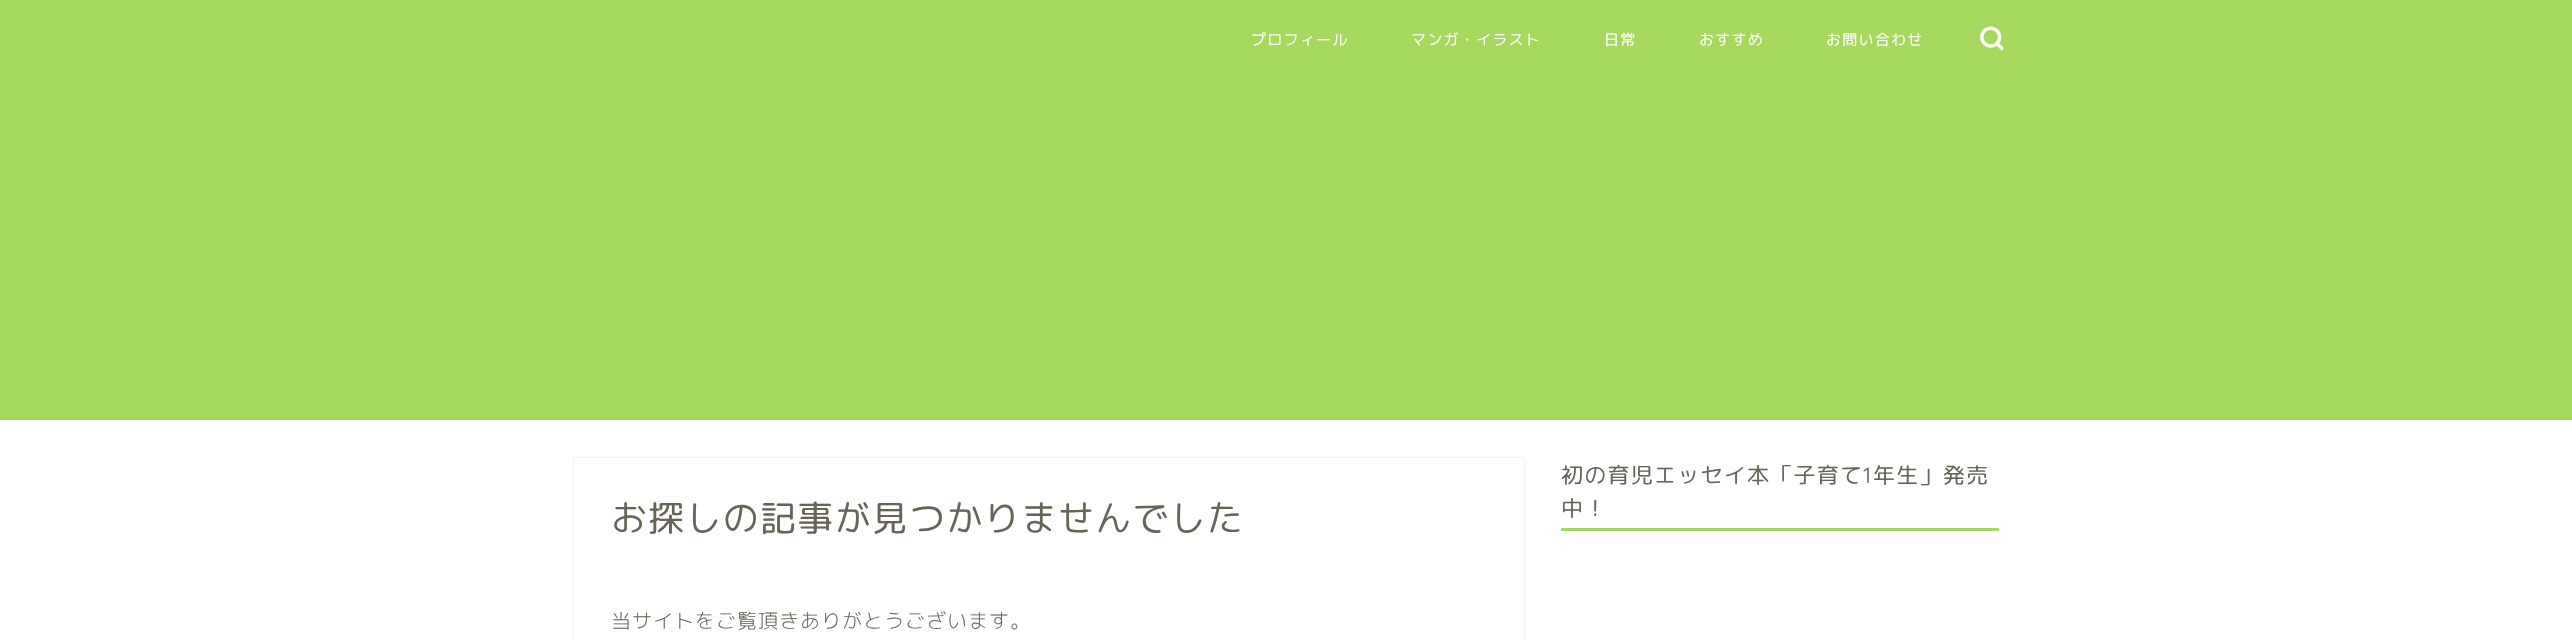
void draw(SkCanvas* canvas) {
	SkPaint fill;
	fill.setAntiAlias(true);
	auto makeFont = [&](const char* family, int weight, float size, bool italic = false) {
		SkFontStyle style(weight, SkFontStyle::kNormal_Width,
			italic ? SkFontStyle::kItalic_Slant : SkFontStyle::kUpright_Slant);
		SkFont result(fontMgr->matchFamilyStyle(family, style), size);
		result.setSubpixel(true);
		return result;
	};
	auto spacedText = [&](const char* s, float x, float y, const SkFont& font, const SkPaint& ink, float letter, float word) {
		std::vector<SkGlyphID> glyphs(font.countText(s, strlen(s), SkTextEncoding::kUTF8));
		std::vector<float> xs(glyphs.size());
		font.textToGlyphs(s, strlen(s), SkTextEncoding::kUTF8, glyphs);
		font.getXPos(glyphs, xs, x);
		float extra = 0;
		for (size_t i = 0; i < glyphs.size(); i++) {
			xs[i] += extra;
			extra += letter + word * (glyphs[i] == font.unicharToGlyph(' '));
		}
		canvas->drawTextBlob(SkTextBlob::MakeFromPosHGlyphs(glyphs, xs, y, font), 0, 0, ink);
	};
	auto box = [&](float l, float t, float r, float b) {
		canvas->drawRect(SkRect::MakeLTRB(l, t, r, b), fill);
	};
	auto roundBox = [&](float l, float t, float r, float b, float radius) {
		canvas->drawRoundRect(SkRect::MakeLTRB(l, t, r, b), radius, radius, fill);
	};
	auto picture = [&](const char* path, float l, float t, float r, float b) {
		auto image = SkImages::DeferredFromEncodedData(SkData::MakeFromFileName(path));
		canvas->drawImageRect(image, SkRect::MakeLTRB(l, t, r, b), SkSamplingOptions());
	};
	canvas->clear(0xFFFFFFFF);
	fill.setColor(0xFFA5D85D);
	box(0, 0, 2572, 420);
	picture("image0.png", 1980, 26, 2004, 51);
	box(1561, 528, 1999, 531);
	fill.setColor(0x2E000000);
	fill.setMaskFilter(SkMaskFilter::MakeBlur(kNormal_SkBlurStyle, 1));
	canvas->drawRoundRect(SkRect::MakeLTRB(574, 458, 1524, 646), 2.5f, 2.5f, fill);
	fill.setMaskFilter(nullptr);
	fill.setColor(0xFFFFFFFF);
	roundBox(574, 458, 1524, 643, 2.5f);
	auto font1 = makeFont("Rounded Mplus 1c", 400, 15);
	spacedText("プロフィール", 1251, 45, font1, fill, 1.25f, 0);
	spacedText("マンガ・イラスト", 1411, 45, font1, fill, 1.25f, 0);
	spacedText("日常", 1604, 45, font1, fill, 1.25f, 0);
	spacedText("おすすめ", 1699, 45, font1, fill, 1.25f, 0);
	spacedText("お問い合わせ", 1826, 45, font1, fill, 1.25f, 0);
	auto font2 = makeFont("Rounded Mplus 1c", 400, 22);
	fill.setColor(0xFF686357);
	spacedText("初の育児エッセイ本「子育て", 1561, 483, font2, fill, 1.25f, 0);
	auto font3 = makeFont("Quicksand", 300, 22);
	spacedText("1", 1863, 483, font3, fill, 1.25f, 0);
	spacedText("年生」発売", 1873, 483, font2, fill, 1.25f, 0);
	spacedText("中！", 1561, 516, font2, fill, 1.25f, 0);
	auto font4 = makeFont("Rounded Mplus 1c", 400, 36);
	spacedText("お探しの記事が見つかりませんでした", 611, 531, font4, fill, 1.25f, 0);
	auto font5 = makeFont("Rounded Mplus 1c", 300, 20);
	spacedText("当サイトをご覧頂きありがとうございます。", 611, 628, font5, fill, 1, 0);
}
